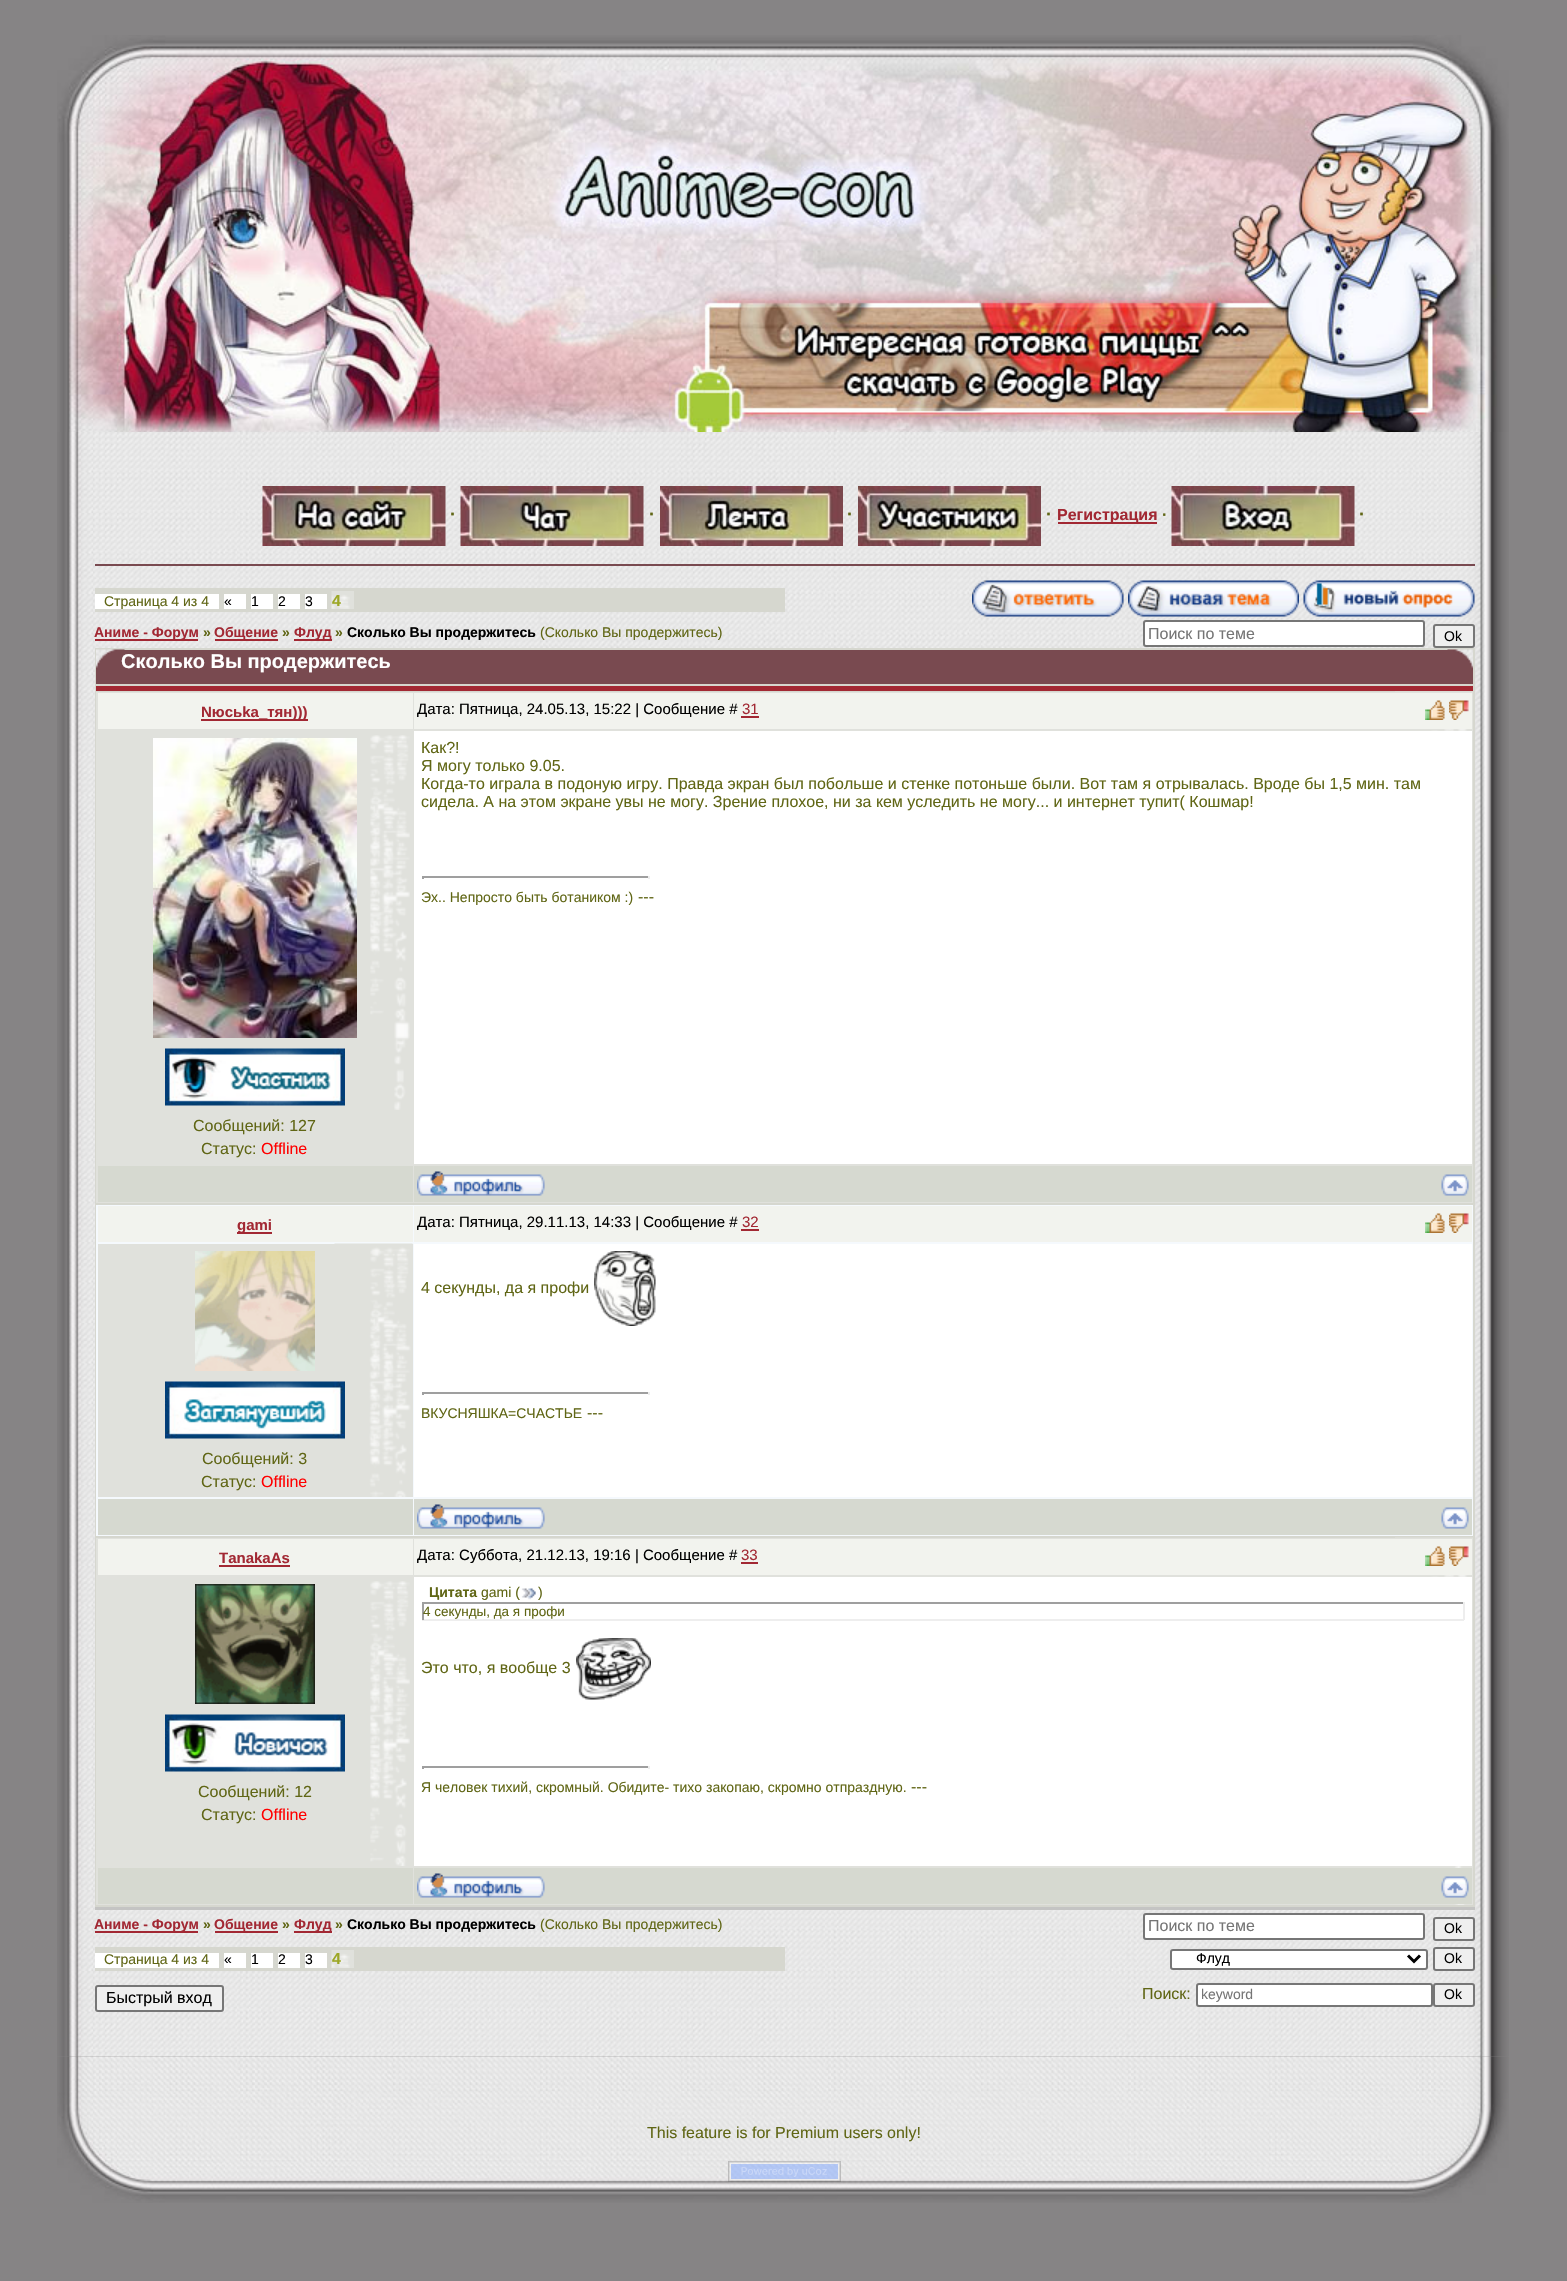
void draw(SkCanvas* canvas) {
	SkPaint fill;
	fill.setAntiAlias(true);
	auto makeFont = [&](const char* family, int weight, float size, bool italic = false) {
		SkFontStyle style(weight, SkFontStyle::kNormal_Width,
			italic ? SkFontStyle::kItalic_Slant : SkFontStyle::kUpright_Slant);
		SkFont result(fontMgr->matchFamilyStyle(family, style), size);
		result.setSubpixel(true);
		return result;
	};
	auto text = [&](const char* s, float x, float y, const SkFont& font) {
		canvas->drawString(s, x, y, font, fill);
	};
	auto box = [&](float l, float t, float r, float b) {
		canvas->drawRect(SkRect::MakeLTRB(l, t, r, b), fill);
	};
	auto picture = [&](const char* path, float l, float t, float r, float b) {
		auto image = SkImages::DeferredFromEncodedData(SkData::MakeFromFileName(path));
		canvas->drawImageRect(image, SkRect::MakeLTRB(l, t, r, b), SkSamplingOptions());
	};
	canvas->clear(0xFF868485);
	picture("image0.png", 57, 35, 1509, 432);
	picture("image1.png", 57, 432, 1509, 2057);
	fill.setColor(0xFF794A50);
	box(95, 564, 1475, 566);
	picture("image2.png", 262, 486, 446, 546);
	picture("image3.png", 460, 486, 644, 546);
	picture("image4.png", 660, 486, 843, 546);
	picture("image5.png", 858, 486, 1041, 546);
	fill.setColor(0xFFA22833);
	box(1058, 522, 1157, 524);
	picture("image6.png", 1171, 486, 1355, 546);
	fill.setColor(0xFFD6D7CF);
	box(95, 588, 785, 612);
	fill.setColor(0xFFFFFFFF);
	box(95, 594, 219, 609);
	box(224, 594, 246, 609);
	box(251, 594, 273, 609);
	box(278, 594, 300, 609);
	box(305, 594, 327, 609);
	fill.setColor(0xFFE0E1DC);
	box(350, 591, 354, 609);
	picture("image7.png", 331, 591, 350, 609);
	picture("image8.png", 972, 580, 1124, 617);
	picture("image9.png", 1128, 580, 1299, 617);
	picture("image10.png", 1303, 580, 1475, 617);
	fill.setColor(0xFFA22833);
	box(95, 639, 198, 641);
	box(215, 639, 278, 641);
	box(294, 639, 332, 641);
	fill.setColor(0xFFFFFFFF);
	canvas->drawRoundRect(SkRect::MakeLTRB(1144, 621, 1424, 646), 2, 2, fill);
	fill.setStyle(SkPaint::kStroke_Style);
	fill.setStrokeWidth(2);
	fill.setColor(0xFF767676);
	canvas->drawRoundRect(SkRect::MakeLTRB(1144, 621, 1424, 646), 2, 2, fill);
	fill.setStyle(SkPaint::kFill_Style);
	fill.setColor(0xFFEFEFEF);
	canvas->drawRoundRect(SkRect::MakeLTRB(1434, 625, 1474, 647), 2, 2, fill);
	fill.setStyle(SkPaint::kStroke_Style);
	fill.setColor(0xFF767676);
	canvas->drawRoundRect(SkRect::MakeLTRB(1434, 625, 1474, 647), 2, 2, fill);
	fill.setStyle(SkPaint::kFill_Style);
	fill.setColor(0xFFD6D7CF);
	box(95, 648, 1475, 1907);
	fill.setColor(0xFFC4C4C3);
	box(95, 1907, 1475, 1910);
	fill.setColor(0xFF794A50);
	box(96, 650, 1448, 684);
	picture("image11.png", 96, 649, 125, 668);
	picture("image12.png", 1447, 649, 1473, 684);
	fill.setColor(0xFFA22833);
	box(96, 686, 1473, 691);
	fill.setColor(0xFFE0E1DC);
	box(96, 692, 1473, 1203);
	picture("image13.png", 1395, 691, 1473, 1071);
	fill.setColor(0xFFF2F3EE);
	box(98, 693, 413, 729);
	fill.setColor(0xFFA22833);
	box(201, 719, 308, 721);
	fill.setColor(0xFFF2F3EE);
	box(414, 693, 1472, 729);
	fill.setColor(0xFFA22833);
	box(741, 716, 759, 718);
	picture("image14.png", 1425, 700, 1445, 720);
	picture("image15.png", 1449, 700, 1469, 720);
	fill.setColor(0xFFFFFFFF);
	box(414, 731, 1472, 1164);
	fill.setColor(0xFF9F9F9F);
	box(422, 876, 650, 878);
	fill.setColor(0xFFEEEEEE);
	box(648, 876, 650, 879);
	fill.setColor(0xFF9F9F9F);
	box(422, 876, 424, 879);
	picture("image16.png", 370, 735, 410, 1110);
	picture("image17.png", 153, 738, 357, 1038);
	picture("image18.png", 165, 1048, 345, 1106);
	fill.setColor(0xFFD6D9D0);
	box(98, 1166, 413, 1202);
	box(414, 1166, 1472, 1202);
	picture("image19.png", 417, 1171, 545, 1196);
	picture("image20.png", 1441, 1174, 1469, 1196);
	fill.setColor(0xFFF5F9FD);
	box(96, 1205, 1473, 1536);
	fill.setColor(0xFFF2F3EE);
	box(98, 1206, 413, 1242);
	fill.setColor(0xFFA22833);
	box(237, 1232, 272, 1234);
	fill.setColor(0xFFF2F3EE);
	box(414, 1206, 1472, 1242);
	fill.setColor(0xFFA22833);
	box(741, 1229, 759, 1231);
	picture("image14.png", 1425, 1213, 1445, 1233);
	picture("image15.png", 1449, 1213, 1469, 1233);
	fill.setColor(0xFFFFFFFF);
	box(414, 1244, 1472, 1497);
	picture("image21.png", 594, 1251, 656, 1326);
	fill.setColor(0xFF9F9F9F);
	box(422, 1392, 650, 1394);
	fill.setColor(0xFFEEEEEE);
	box(648, 1392, 650, 1395);
	fill.setColor(0xFF9F9F9F);
	box(422, 1392, 424, 1395);
	fill.setColor(0xFFE0E1DC);
	box(98, 1244, 413, 1497);
	picture("image22.png", 334, 1243, 413, 1497);
	picture("image23.png", 195, 1251, 315, 1371);
	picture("image24.png", 165, 1381, 345, 1439);
	fill.setColor(0xFFD6D9D0);
	box(98, 1499, 413, 1535);
	box(414, 1499, 1472, 1535);
	picture("image19.png", 417, 1504, 545, 1529);
	picture("image20.png", 1441, 1507, 1469, 1529);
	fill.setColor(0xFFE0E1DC);
	box(96, 1538, 1395, 1905);
	picture("image25.png", 1395, 1537, 1473, 1905);
	fill.setColor(0xFFF2F3EE);
	box(98, 1539, 413, 1575);
	fill.setColor(0xFFA22833);
	box(219, 1565, 290, 1567);
	fill.setColor(0xFFF2F3EE);
	box(414, 1539, 1472, 1575);
	fill.setColor(0xFFA22833);
	box(741, 1562, 758, 1564);
	picture("image14.png", 1425, 1546, 1445, 1566);
	picture("image15.png", 1449, 1546, 1469, 1566);
	fill.setColor(0xFFFFFFFF);
	box(414, 1577, 1472, 1866);
	picture("image26.png", 521, 1588, 536, 1600);
	fill.setColor(0xFF9F9F9F);
	box(422, 1602, 1464, 1604);
	fill.setColor(0xFFEEEEEE);
	box(1463, 1602, 1465, 1620);
	box(422, 1619, 1464, 1621);
	fill.setColor(0xFF9F9F9F);
	box(422, 1602, 424, 1620);
	picture("image27.png", 576, 1638, 651, 1700);
	box(422, 1766, 650, 1768);
	fill.setColor(0xFFEEEEEE);
	box(648, 1766, 650, 1769);
	fill.setColor(0xFF9F9F9F);
	box(422, 1766, 424, 1769);
	picture("image28.png", 370, 1581, 410, 1866);
	picture("image29.png", 195, 1584, 315, 1704);
	picture("image30.png", 165, 1714, 345, 1772);
	fill.setColor(0xFFD6D9D0);
	box(98, 1868, 413, 1904);
	box(414, 1868, 1472, 1904);
	picture("image19.png", 417, 1873, 545, 1898);
	picture("image20.png", 1441, 1876, 1469, 1898);
	fill.setColor(0xFFA22833);
	box(95, 1931, 198, 1933);
	box(215, 1931, 278, 1933);
	box(294, 1931, 332, 1933);
	fill.setColor(0xFFFFFFFF);
	canvas->drawRoundRect(SkRect::MakeLTRB(1144, 1914, 1424, 1939), 2, 2, fill);
	fill.setStyle(SkPaint::kStroke_Style);
	fill.setColor(0xFF767676);
	canvas->drawRoundRect(SkRect::MakeLTRB(1144, 1914, 1424, 1939), 2, 2, fill);
	fill.setStyle(SkPaint::kFill_Style);
	fill.setColor(0xFFEFEFEF);
	canvas->drawRoundRect(SkRect::MakeLTRB(1434, 1918, 1474, 1940), 2, 2, fill);
	fill.setStyle(SkPaint::kStroke_Style);
	fill.setColor(0xFF767676);
	canvas->drawRoundRect(SkRect::MakeLTRB(1434, 1918, 1474, 1940), 2, 2, fill);
	fill.setStyle(SkPaint::kFill_Style);
	fill.setColor(0xFFD6D7CF);
	box(95, 1947, 785, 1971);
	fill.setColor(0xFFFFFFFF);
	box(95, 1953, 219, 1968);
	box(224, 1953, 246, 1968);
	box(251, 1953, 273, 1968);
	box(278, 1953, 300, 1968);
	box(305, 1953, 327, 1968);
	fill.setColor(0xFFE0E1DC);
	box(350, 1950, 354, 1968);
	picture("image7.png", 331, 1950, 350, 1968);
	fill.setColor(0xFFFFFFFF);
	canvas->drawRoundRect(SkRect::MakeLTRB(1171, 1950, 1427, 1969), 2, 2, fill);
	fill.setStyle(SkPaint::kStroke_Style);
	fill.setColor(0xFF767676);
	canvas->drawRoundRect(SkRect::MakeLTRB(1171, 1950, 1427, 1969), 2, 2, fill);
	fill.setStrokeWidth(3);
	fill.setColor(0xFF000000);
	canvas->drawPath(SkPathBuilder().moveTo(1408, 1955.5f).lineTo(1414, 1961.5f).lineTo(1420, 1955.5f).detach(), fill);
	fill.setStyle(SkPaint::kFill_Style);
	fill.setColor(0xFFEFEFEF);
	canvas->drawRoundRect(SkRect::MakeLTRB(1434, 1948, 1474, 1970), 2, 2, fill);
	fill.setStyle(SkPaint::kStroke_Style);
	fill.setStrokeWidth(2);
	fill.setColor(0xFF767676);
	canvas->drawRoundRect(SkRect::MakeLTRB(1434, 1948, 1474, 1970), 2, 2, fill);
	fill.setStyle(SkPaint::kFill_Style);
	fill.setColor(0xFFEFEFEF);
	canvas->drawRoundRect(SkRect::MakeLTRB(96, 1986, 223, 2011), 2, 2, fill);
	fill.setStyle(SkPaint::kStroke_Style);
	fill.setColor(0xFF767676);
	canvas->drawRoundRect(SkRect::MakeLTRB(96, 1986, 223, 2011), 2, 2, fill);
	fill.setStyle(SkPaint::kFill_Style);
	fill.setColor(0xFFFFFFFF);
	canvas->drawRoundRect(SkRect::MakeLTRB(1197, 1984, 1432, 2006), 2, 2, fill);
	fill.setStyle(SkPaint::kStroke_Style);
	fill.setColor(0xFF767676);
	canvas->drawRoundRect(SkRect::MakeLTRB(1197, 1984, 1432, 2006), 2, 2, fill);
	fill.setStyle(SkPaint::kFill_Style);
	fill.setColor(0xFFEFEFEF);
	canvas->drawRoundRect(SkRect::MakeLTRB(1434, 1984, 1474, 2006), 2, 2, fill);
	fill.setStyle(SkPaint::kStroke_Style);
	fill.setColor(0xFF767676);
	canvas->drawRoundRect(SkRect::MakeLTRB(1434, 1984, 1474, 2006), 2, 2, fill);
	picture("image31.png", 57, 2056, 1509, 2203);
	picture("image32.png", 728, 2161, 841, 2182);
	auto font1 = makeFont("Liberation Sans", 700, 18);
	fill.setStyle(SkPaint::kFill_Style);
	fill.setColor(0xFF606615);
	text("·", 450, 520, font1);
	text("·", 649, 520, font1);
	text("·", 847, 520, font1);
	text("·", 1046, 520, font1);
	auto font2 = makeFont("Liberation Sans", 700, 16);
	fill.setColor(0xFFA22833);
	text("Регистрация", 1057, 520, font2);
	fill.setColor(0xFF606615);
	text("·", 1162, 520, font2);
	text("·", 1359, 520, font1);
	auto font3 = makeFont("Liberation Sans", 400, 14);
	text("Страница 4 из 4", 104, 606, font3);
	fill.setColor(0xFF000000);
	text("«", 224, 606, font3);
	text("1", 251, 606, font3);
	text("2", 278, 606, font3);
	text("3", 305, 606, font3);
	fill.setColor(0xFF9CA725);
	text("4", 332, 606, font2);
	auto font4 = makeFont("Liberation Sans", 700, 14);
	fill.setColor(0xFFA22833);
	text("Аниме - Форум", 94, 637, font4);
	fill.setColor(0xFF606615);
	text("»", 203, 637, font4);
	fill.setColor(0xFFA22833);
	text("Общение", 214, 637, font4);
	fill.setColor(0xFF606615);
	text("»", 282, 637, font4);
	fill.setColor(0xFFA22833);
	text("Флуд", 294, 637, font4);
	fill.setColor(0xFF606615);
	text("»", 335, 637, font4);
	fill.setColor(0xFF000000);
	text("Сколько Вы продержитесь", 347, 637, font4);
	fill.setColor(0xFF606615);
	text("(Сколько Вы продержитесь)", 540, 637, font3);
	auto font5 = makeFont("Liberation Sans", 400, 16);
	fill.setColor(0xFF757575);
	text("Поиск по теме", 1148, 639, font5);
	fill.setColor(0xFF000000);
	text("Ok", 1444, 641, font3);
	auto font6 = makeFont("Liberation Sans", 700, 20);
	fill.setColor(0xFFFFFFFF);
	text("Сколько Вы продержитесь", 121, 668, font6);
	auto font7 = makeFont("Liberation Sans", 700, 15);
	fill.setColor(0xFFA22833);
	text("Nюсьkа_тян)))", 201, 717, font7);
	auto font8 = makeFont("Liberation Sans", 400, 15);
	fill.setColor(0xFF000000);
	text("Дата: Пятница, 24.05.13, 15:22 | Сообщение #", 417, 714, font8);
	fill.setColor(0xFFA22833);
	text("31", 742, 714, font8);
	fill.setColor(0xFF606615);
	text("Как?!", 421, 753, font5);
	text("Я могу только 9.05.", 421, 771, font5);
	text("Когда-то играла в подоную игру. Правда экран был побольше и стенке потоньше были. Вот там я отрывалась. Вроде бы 1,5 мин. там", 421, 789, font5);
	text("сидела. А на этом экране увы не могу. Зрение плохое, ни за кем уследить не могу... и интернет тупит( Кошмар!", 421, 807, font5);
	text("Эх.. Непросто быть ботаником :)", 421, 902, font3);
	text("---", 638, 902, font5);
	text("Сообщений: 127", 193, 1131, font5);
	text("Статус:", 201, 1154, font5);
	fill.setColor(0xFFFF0000);
	text("Offline", 261, 1154, font5);
	fill.setColor(0xFFA22833);
	text("gami", 237, 1230, font7);
	fill.setColor(0xFF000000);
	text("Дата: Пятница, 29.11.13, 14:33 | Сообщение #", 417, 1227, font8);
	fill.setColor(0xFFA22833);
	text("32", 742, 1227, font8);
	fill.setColor(0xFF606615);
	text("4 секунды, да я профи", 421, 1293, font5);
	text("ВКУСНЯШКА=СЧАСТЬЕ", 421, 1418, font3);
	text("---", 587, 1418, font5);
	text("Сообщений: 3", 202, 1464, font5);
	text("Статус:", 201, 1487, font5);
	fill.setColor(0xFFFF0000);
	text("Offline", 261, 1487, font5);
	fill.setColor(0xFFA22833);
	text("TanakaAs", 219, 1563, font7);
	fill.setColor(0xFF000000);
	text("Дата: Суббота, 21.12.13, 19:16 | Сообщение #", 417, 1560, font8);
	fill.setColor(0xFFA22833);
	text("33", 741, 1560, font8);
	fill.setColor(0xFF606615);
	text("Цитата", 429, 1597, font4);
	text("gami (", 481, 1597, font3);
	text(")", 538, 1597, font3);
	auto font9 = makeFont("Liberation Sans", 400, 13.5f);
	text("4 секунды, да я профи", 423, 1616, font9);
	text("Это что, я вообще 3", 421, 1673, font5);
	text("Я человек тихий, скромный. Обидите- тихо закопаю, скромно отпраздную.", 421, 1792, font3);
	text("---", 911, 1792, font5);
	text("Сообщений: 12", 198, 1797, font5);
	text("Статус:", 201, 1820, font5);
	fill.setColor(0xFFFF0000);
	text("Offline", 261, 1820, font5);
	fill.setColor(0xFFA22833);
	text("Аниме - Форум", 94, 1929, font4);
	fill.setColor(0xFF606615);
	text("»", 203, 1929, font4);
	fill.setColor(0xFFA22833);
	text("Общение", 214, 1929, font4);
	fill.setColor(0xFF606615);
	text("»", 282, 1929, font4);
	fill.setColor(0xFFA22833);
	text("Флуд", 294, 1929, font4);
	fill.setColor(0xFF606615);
	text("»", 335, 1929, font4);
	fill.setColor(0xFF000000);
	text("Сколько Вы продержитесь", 347, 1929, font4);
	fill.setColor(0xFF606615);
	text("(Сколько Вы продержитесь)", 540, 1929, font3);
	fill.setColor(0xFF757575);
	text("Поиск по теме", 1148, 1931, font5);
	fill.setColor(0xFF000000);
	text("Ok", 1444, 1933, font3);
	fill.setColor(0xFF606615);
	text("Страница 4 из 4", 104, 1964, font3);
	fill.setColor(0xFF000000);
	text("«", 224, 1964, font3);
	text("1", 251, 1964, font3);
	text("2", 278, 1964, font3);
	text("3", 305, 1964, font3);
	fill.setColor(0xFF9CA725);
	text("4", 332, 1964, font2);
	fill.setColor(0xFF000000);
	text("Флуд", 1196, 1963, font3);
	text("Ok", 1444, 1963, font3);
	text("Быстрый вход", 106, 2003, font5);
	fill.setColor(0xFF606615);
	text("Поиск:", 1142, 1999, font5);
	canvas->save();
	canvas->clipRect(SkRect::MakeLTRB(1202, 1988, 1427, 2003));
	fill.setColor(0xFF757575);
	text("keyword", 1201, 1999, font3);
	canvas->restore();
	fill.setColor(0xFF000000);
	text("Ok", 1444, 1999, font3);
	fill.setColor(0xFF606615);
	text("This feature is for Premium users only!", 647, 2138, font5);
}
